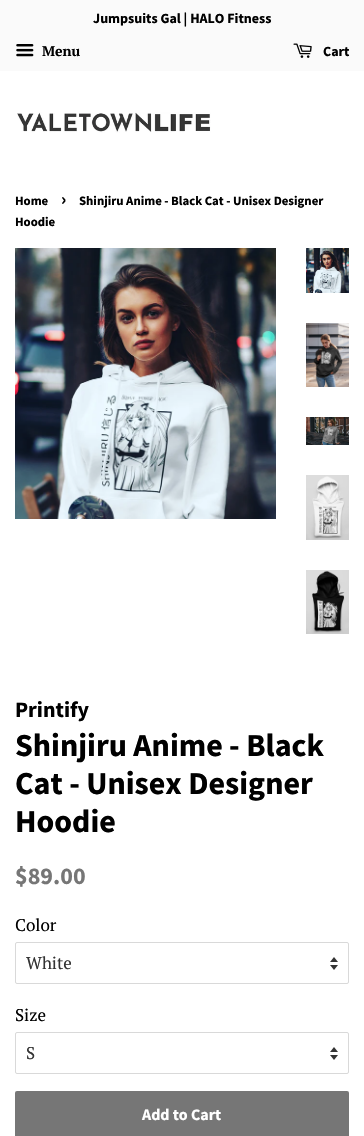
void draw(SkCanvas* canvas) {
	SkPaint fill;
	fill.setAntiAlias(true);
	auto makeFont = [&](const char* family, int weight, float size, bool italic = false) {
		SkFontStyle style(weight, SkFontStyle::kNormal_Width,
			italic ? SkFontStyle::kItalic_Slant : SkFontStyle::kUpright_Slant);
		SkFont result(fontMgr->matchFamilyStyle(family, style), size);
		result.setSubpixel(true);
		return result;
	};
	auto text = [&](const char* s, float x, float y, const SkFont& font) {
		canvas->drawString(s, x, y, font, fill);
	};
	auto box = [&](float l, float t, float r, float b) {
		canvas->drawRect(SkRect::MakeLTRB(l, t, r, b), fill);
	};
	auto roundBox = [&](float l, float t, float r, float b, float radius) {
		canvas->drawRoundRect(SkRect::MakeLTRB(l, t, r, b), radius, radius, fill);
	};
	auto picture = [&](const char* path, float l, float t, float r, float b) {
		auto image = SkImages::DeferredFromEncodedData(SkData::MakeFromFileName(path));
		canvas->drawImageRect(image, SkRect::MakeLTRB(l, t, r, b), SkSamplingOptions());
	};
	canvas->clear(0xFFFFFFFF);
	fill.setColor(0xFFFAFAFA);
	box(0, 0, 364, 71);
	picture("image0.png", 16, 44, 34, 57);
	picture("image1.png", 293, 43, 312, 58);
	picture("image2.png", 17, 112, 211, 133);
	picture("image3.png", 15, 248, 276, 519);
	picture("image4.png", 306, 248, 349, 293);
	picture("image5.png", 306, 323, 349, 387);
	picture("image6.png", 306, 417, 349, 445);
	picture("image7.png", 306, 475, 349, 540);
	picture("image8.png", 306, 570, 349, 634);
	picture("image9.png", 330, 957, 338, 970);
	fill.setStyle(SkPaint::kStroke_Style);
	fill.setStrokeWidth(1);
	fill.setColor(0xFFD9D9D9);
	canvas->drawRoundRect(SkRect::MakeLTRB(15.5f, 942.5f, 348.5f, 983.5f), 1.5f, 1.5f, fill);
	picture("image9.png", 330, 1047, 338, 1060);
	canvas->drawRoundRect(SkRect::MakeLTRB(15.5f, 1032.5f, 348.5f, 1073.5f), 1.5f, 1.5f, fill);
	fill.setStyle(SkPaint::kFill_Style);
	fill.setColor(0xFF767676);
	roundBox(15, 1091, 349, 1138, 2);
	auto font1 = makeFont("Source Sans Pro", 700, 14);
	fill.setColor(0xFF000000);
	text("Jumpsuits Gal | HALO Fitness", 93, 23, font1);
	auto font2 = makeFont("PT Serif", 700, 14);
	text("Menu", 42, 56, font2);
	text("Cart", 323, 56, font1);
	auto font3 = makeFont("Source Sans Pro", 700, 12.75f);
	text("Home", 15, 205, font3);
	auto font4 = makeFont("Source Sans Pro", 700, 18);
	text("›", 61, 205, font4);
	text("Shinjiru Anime - Black Cat - Unisex Designer", 79, 205, font3);
	text("Hoodie", 15, 226, font3);
	auto font5 = makeFont("Source Sans Pro", 700, 22);
	text("Printify", 15, 717, font5);
	auto font6 = makeFont("Source Sans Pro", 700, 32);
	text("Shinjiru Anime - Black", 15, 756, font6);
	text("Cat - Unisex Designer", 15, 794, font6);
	text("Hoodie", 15, 832, font6);
	auto font7 = makeFont("Source Sans Pro", 700, 24);
	fill.setColor(0xFF767676);
	text("$89.00", 15, 884, font7);
	auto font8 = makeFont("PT Serif", 400, 17);
	fill.setColor(0xFF000000);
	text("Color", 15, 931, font8);
	fill.setColor(0xFF333333);
	text("White", 26, 969, font8);
	fill.setColor(0xFF000000);
	text("Size", 15, 1021, font8);
	fill.setColor(0xFF333333);
	text("S", 26, 1059, font8);
	auto font9 = makeFont("Source Sans Pro", 700, 16);
	fill.setColor(0xFFFFFFFF);
	text("Add to Cart", 142, 1120, font9);
}
